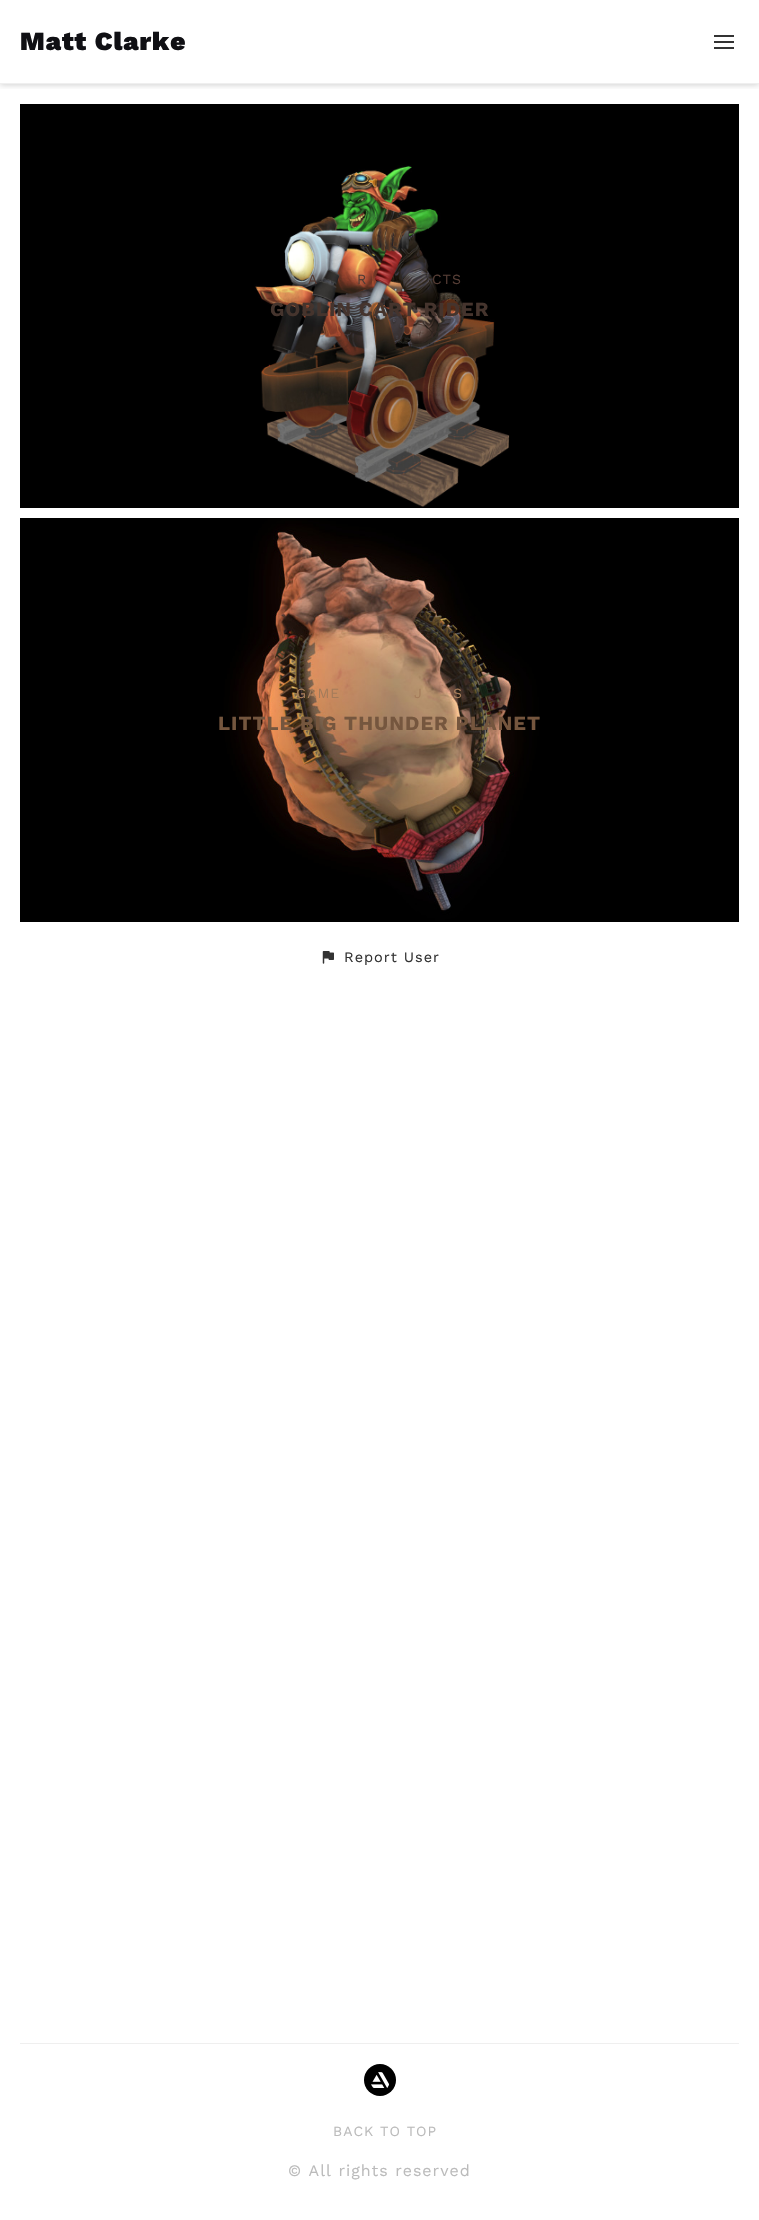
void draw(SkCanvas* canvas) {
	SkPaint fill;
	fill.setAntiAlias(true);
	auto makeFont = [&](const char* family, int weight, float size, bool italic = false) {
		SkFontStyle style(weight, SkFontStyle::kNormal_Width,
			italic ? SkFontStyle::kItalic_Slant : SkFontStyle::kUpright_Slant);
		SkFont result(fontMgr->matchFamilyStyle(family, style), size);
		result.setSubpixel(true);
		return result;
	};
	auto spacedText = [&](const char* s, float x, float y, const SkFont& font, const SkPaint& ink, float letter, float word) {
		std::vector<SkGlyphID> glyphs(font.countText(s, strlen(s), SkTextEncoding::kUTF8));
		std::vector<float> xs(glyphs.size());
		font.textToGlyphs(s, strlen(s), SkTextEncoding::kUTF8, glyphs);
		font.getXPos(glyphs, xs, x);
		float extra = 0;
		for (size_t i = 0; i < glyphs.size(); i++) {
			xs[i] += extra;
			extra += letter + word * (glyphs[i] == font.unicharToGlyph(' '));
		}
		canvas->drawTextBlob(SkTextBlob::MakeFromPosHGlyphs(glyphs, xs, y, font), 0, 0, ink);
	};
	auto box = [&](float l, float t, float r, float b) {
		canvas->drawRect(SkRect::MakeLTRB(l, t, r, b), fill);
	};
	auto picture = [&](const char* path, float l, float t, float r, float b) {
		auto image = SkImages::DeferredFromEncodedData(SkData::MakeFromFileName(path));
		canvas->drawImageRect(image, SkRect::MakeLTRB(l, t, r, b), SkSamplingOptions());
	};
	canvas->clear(0xFFFFFFFF);
	canvas->save();
	canvas->clipRect(SkRect::MakeLTRB(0, 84, 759, 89));
	fill.setColor(0x2E000000);
	fill.setMaskFilter(SkMaskFilter::MakeBlur(kNormal_SkBlurStyle, 3));
	canvas->drawRect(SkRect::MakeLTRB(0, 1, 759, 85), fill);
	fill.setMaskFilter(nullptr);
	canvas->restore();
	fill.setColor(0xFFEFEFEF);
	box(0, 83, 759, 84);
	fill.setColor(0xFF333333);
	box(714, 35, 734, 37);
	box(714, 41, 734, 43);
	box(714, 47, 734, 49);
	picture("image0.png", 20, 104, 739, 508);
	picture("image1.png", 20, 518, 739, 922);
	picture("image2.png", 322, 951, 334, 964);
	fill.setColor(0xFFEFEFEF);
	box(20, 2043, 739, 2044);
	fill.setColor(0xFF000000);
	canvas->drawCircle(380, 2080, 16, fill);
	picture("image3.png", 371, 2072, 389, 2088);
	auto font1 = makeFont("Work Sans", 900, 26);
	fill.setColor(0xFF101014);
	spacedText("Matt Clarke", 20, 50, font1, fill, 1, 0);
	auto font2 = makeFont("Work Sans", 400, 14);
	fill.setColor(0xFF543C34);
	spacedText("A", 308, 284, font2, fill, 1, 0);
	spacedText("R", 357, 284, font2, fill, 1, 0);
	spacedText("CTS", 432, 284, font2, fill, 1, 0);
	auto font3 = makeFont("Work Sans", 700, 20);
	fill.setColor(0xFF45342D);
	spacedText("GOBLIN CART RIDER", 270, 316, font3, fill, 1, 0);
	fill.setColor(0xFFA57C5A);
	spacedText("GAME", 296, 698, font2, fill, 1, 0);
	spacedText("J", 414, 698, font2, fill, 1, 0);
	spacedText("S", 453, 698, font2, fill, 1, 0);
	fill.setColor(0xFF75563E);
	spacedText("LITTLE BIG THUNDER PLANET", 218, 730, font3, fill, 1, 0);
	auto font4 = makeFont("Work Sans", 400, 14.5f);
	fill.setColor(0xFF333333);
	spacedText("Report User", 344, 962, font4, fill, 1, 0);
	fill.setColor(0xFFBBBBBB);
	spacedText("BACK TO TOP", 333, 2136, font2, fill, 1, 0);
	auto font5 = makeFont("Work Sans", 400, 16);
	spacedText("© All rights reserved", 288, 2176, font5, fill, 1, 0);
}
